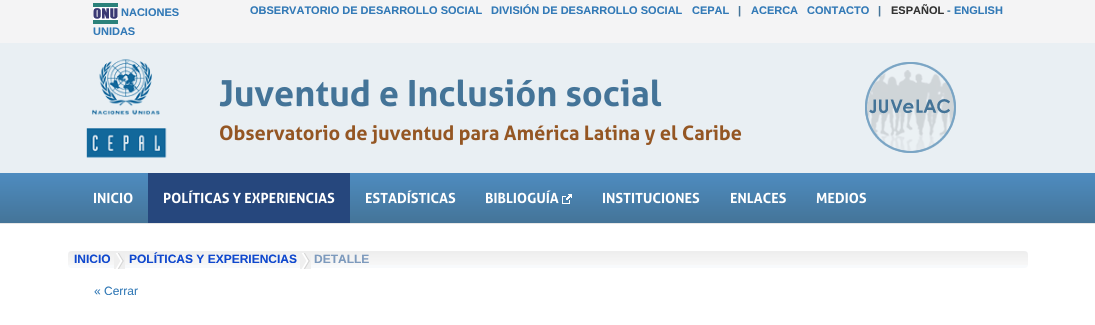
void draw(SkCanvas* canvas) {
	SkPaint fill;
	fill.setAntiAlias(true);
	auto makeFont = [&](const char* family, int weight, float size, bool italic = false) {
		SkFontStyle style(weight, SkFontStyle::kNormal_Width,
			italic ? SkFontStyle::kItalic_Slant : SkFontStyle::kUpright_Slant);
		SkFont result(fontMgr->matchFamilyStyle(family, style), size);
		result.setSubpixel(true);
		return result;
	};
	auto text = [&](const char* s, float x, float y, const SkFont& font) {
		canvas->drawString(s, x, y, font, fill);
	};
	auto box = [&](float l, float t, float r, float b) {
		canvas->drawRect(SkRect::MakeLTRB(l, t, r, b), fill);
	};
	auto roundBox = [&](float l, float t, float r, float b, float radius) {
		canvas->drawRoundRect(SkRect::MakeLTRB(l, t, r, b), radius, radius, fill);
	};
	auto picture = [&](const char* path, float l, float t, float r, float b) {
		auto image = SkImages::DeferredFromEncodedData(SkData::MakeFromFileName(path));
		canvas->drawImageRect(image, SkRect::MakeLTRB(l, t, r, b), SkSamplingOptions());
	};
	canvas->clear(0xFFFFFFFF);
	fill.setColor(0xFFF4F4F5);
	box(0, 0, 1095, 43);
	picture("image0.png", 93, 3, 118, 24);
	fill.setColor(0xFFE9EFF3);
	box(0, 43, 1095, 173);
	picture("image1.png", 86, 59, 167, 158);
	picture("image2.png", 219, 79, 662, 107);
	picture("image3.png", 220, 125, 742, 145);
	picture("image4.png", 865, 62, 956, 153);
	{
		const SkColor colors[] = {0xFF4E8CC0, 0xFF447498};
		const float stops[] = {0, 1};
		const SkPoint ends[] = {{548, 173}, {548, 223}};
		fill.setShader(SkGradientShader::MakeLinear(ends, colors, stops, 2, SkTileMode::kClamp));
		fill.setAlpha(255);
	}
	box(0, 173, 1095, 223);
	fill.setShader(nullptr);
	fill.setColor(0xFFE7E7E7);
	box(0, 223, 1095, 224);
	picture("image5.png", 94, 192, 133, 204);
	fill.setColor(0xFF26477D);
	box(148, 173, 350, 223);
	picture("image6.png", 164, 190, 335, 204);
	picture("image7.png", 366, 190, 456, 204);
	picture("image8.png", 486, 190, 559, 204);
	picture("image9.png", 562, 194, 572, 204);
	picture("image10.png", 603, 192, 700, 204);
	picture("image11.png", 731, 192, 786, 204);
	picture("image12.png", 816, 192, 866, 204);
	fill.setColor(0xFFF8FAFC);
	roundBox(68, 251, 1028, 268, 4);
	picture("image13.png", 68, 251, 1028, 265);
	picture("image14.png", 114, 253, 125, 269);
	picture("image14.png", 300, 253, 311, 269);
	auto font1 = makeFont("Liberation Sans", 700, 11);
	fill.setColor(0xFF337AB7);
	text("NACIONES", 121, 16, font1);
	text("UNIDAS", 93, 35, font1);
	text("OBSERVATORIO DE DESARROLLO SOCIAL", 250, 14, font1);
	text("DIVISIÓN DE DESARROLLO SOCIAL", 491, 14, font1);
	text("CEPAL", 692, 14, font1);
	fill.setColor(0xFF447498);
	text("|", 738, 14, font1);
	fill.setColor(0xFF337AB7);
	text("ACERCA", 751, 14, font1);
	text("CONTACTO", 807, 14, font1);
	fill.setColor(0xFF447498);
	text("|", 878, 14, font1);
	fill.setColor(0xFF333333);
	text("ESPAÑOL", 891, 14, font1);
	fill.setColor(0xFF447498);
	text("-", 947, 14, font1);
	fill.setColor(0xFF337AB7);
	text("ENGLISH", 954, 14, font1);
	auto font2 = makeFont("Liberation Sans", 700, 12);
	fill.setColor(0xFF0F48CE);
	text("INICIO", 74, 263, font2);
	text("POLÍTICAS Y EXPERIENCIAS", 129, 263, font2);
	fill.setColor(0xFF7D9ABD);
	text("DETALLE", 314, 263, font2);
	auto font3 = makeFont("Liberation Sans", 400, 12);
	fill.setColor(0xFF337AB7);
	text("« Cerrar", 94, 295, font3);
}
